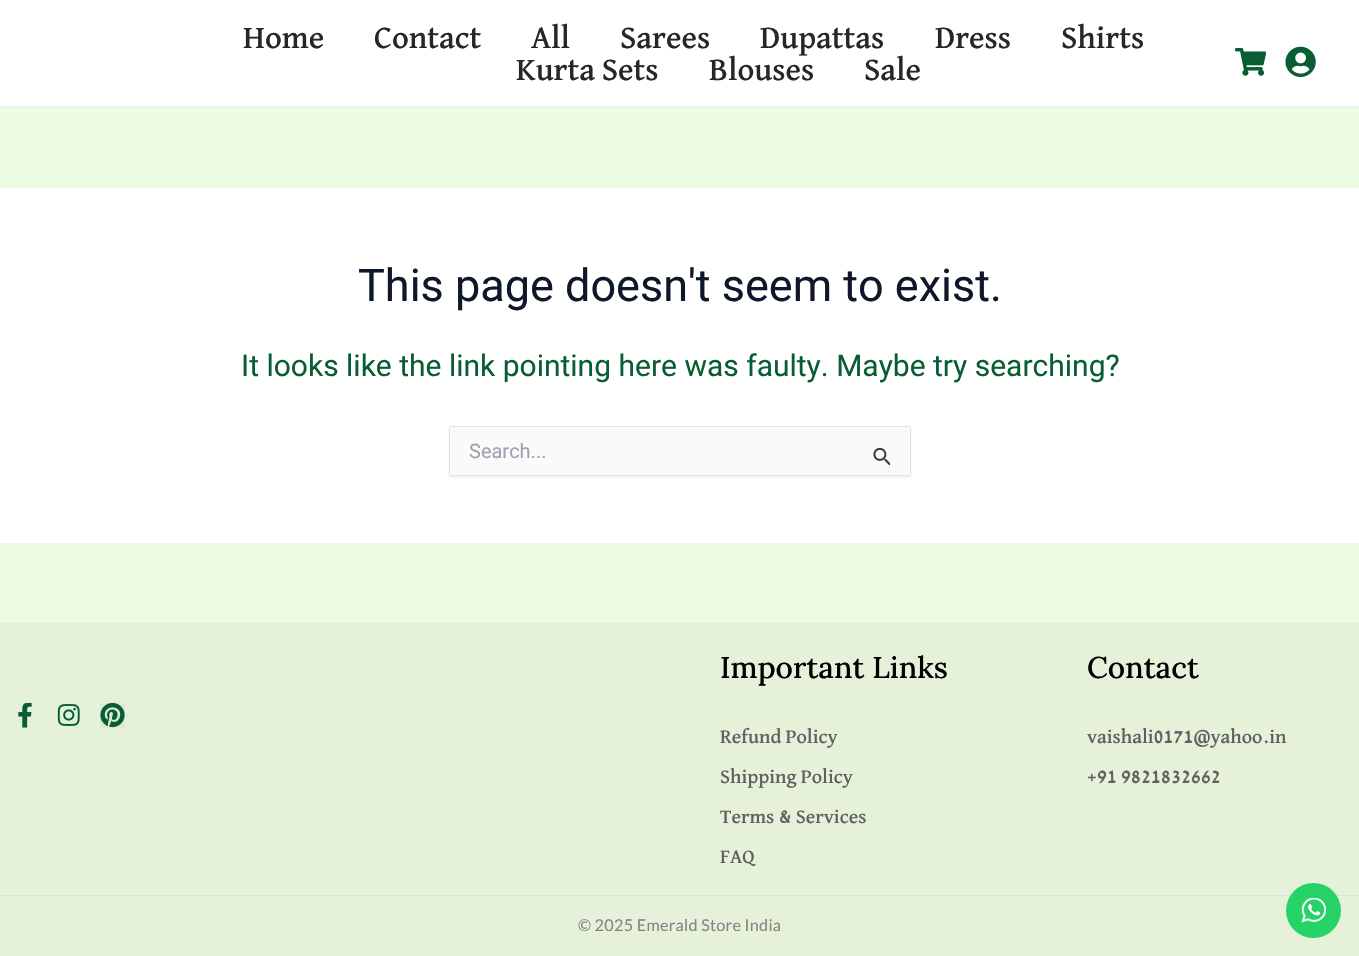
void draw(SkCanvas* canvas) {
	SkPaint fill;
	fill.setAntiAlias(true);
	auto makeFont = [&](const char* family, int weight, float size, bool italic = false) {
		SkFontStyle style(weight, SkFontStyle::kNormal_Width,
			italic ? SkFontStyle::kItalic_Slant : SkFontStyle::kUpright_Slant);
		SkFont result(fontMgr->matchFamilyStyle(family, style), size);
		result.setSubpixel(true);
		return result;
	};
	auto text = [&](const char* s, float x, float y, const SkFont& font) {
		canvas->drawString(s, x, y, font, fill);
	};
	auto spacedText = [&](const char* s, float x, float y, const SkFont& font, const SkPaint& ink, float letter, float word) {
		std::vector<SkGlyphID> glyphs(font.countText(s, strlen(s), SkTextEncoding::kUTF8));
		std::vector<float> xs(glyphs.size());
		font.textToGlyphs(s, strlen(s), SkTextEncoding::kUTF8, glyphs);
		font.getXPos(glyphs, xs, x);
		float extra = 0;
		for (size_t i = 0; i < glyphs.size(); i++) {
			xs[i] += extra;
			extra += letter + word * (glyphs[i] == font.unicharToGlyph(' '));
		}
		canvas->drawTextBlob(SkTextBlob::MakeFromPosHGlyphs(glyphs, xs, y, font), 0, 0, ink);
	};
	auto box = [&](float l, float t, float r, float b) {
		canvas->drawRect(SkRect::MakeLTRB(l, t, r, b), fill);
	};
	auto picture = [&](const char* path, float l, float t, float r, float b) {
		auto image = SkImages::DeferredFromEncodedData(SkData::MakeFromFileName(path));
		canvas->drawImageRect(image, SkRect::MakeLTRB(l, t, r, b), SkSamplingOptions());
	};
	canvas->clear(0xFFEDFBE2);
	fill.setColor(0xFFFFFFFF);
	box(0, 0, 1359, 106);
	fill.setColor(0xFFEAEAEA);
	box(0, 106, 1359, 107);
	picture("image0.png", 1235, 48, 1266, 76);
	picture("image1.png", 1285, 46, 1316, 77);
	fill.setColor(0xFFFFFFFF);
	box(0, 188, 1359, 543);
	fill.setColor(0x0D000000);
	fill.setMaskFilter(SkMaskFilter::MakeBlur(kNormal_SkBlurStyle, 1));
	canvas->drawRoundRect(SkRect::MakeLTRB(449, 428, 911, 478), 2.5f, 2.5f, fill);
	fill.setMaskFilter(nullptr);
	fill.setColor(0xFFFAFAFA);
	canvas->drawRoundRect(SkRect::MakeLTRB(449.5f, 426.5f, 910.5f, 475.5f), 2, 2, fill);
	fill.setStyle(SkPaint::kStroke_Style);
	fill.setStrokeWidth(1);
	fill.setColor(0xFFD5EAD8);
	canvas->drawRoundRect(SkRect::MakeLTRB(449.5f, 426.5f, 910.5f, 475.5f), 2, 2, fill);
	picture("image2.png", 873, 447, 890, 466);
	fill.setStyle(SkPaint::kFill_Style);
	fill.setColor(0xFFE6F1D9);
	box(0, 623, 1359, 956);
	picture("image3.png", 18, 703, 32, 728);
	picture("image4.png", 57, 704, 80, 726);
	fill.setColor(0xFFDEE9D2);
	box(100, 703, 125, 728);
	picture("image5.png", 100, 703, 125, 728);
	fill.setColor(0xFFE0E0E0);
	box(0, 895, 1359, 896);
	fill.setColor(0xFF25D366);
	canvas->drawCircle(1313.5f, 910.5f, 27.5f, fill);
	picture("image6.png", 1301, 898, 1326, 923);
	auto font1 = makeFont("David Libre", 500, 32.5f);
	fill.setColor(0xFF272727);
	text("Home", 243, 48, font1);
	text("Contact", 374, 48, font1);
	text("All", 531, 48, font1);
	text("Sarees", 620, 48, font1);
	text("Dupattas", 760, 48, font1);
	text("Dress", 935, 48, font1);
	text("Shirts", 1061, 48, font1);
	text("Kurta Sets", 516, 80, font1);
	text("Blouses", 709, 80, font1);
	text("Sale", 864, 80, font1);
	auto font2 = makeFont("Roboto", 400, 45);
	fill.setColor(0xFF0F172A);
	text("This page doesn't seem to exist.", 358, 301, font2);
	auto font3 = makeFont("Roboto", 400, 30);
	fill.setColor(0xFF085D33);
	text("It looks like the link pointing here was faulty. Maybe try searching?", 241, 376, font3);
	auto font4 = makeFont("Roboto", 400, 20);
	fill.setColor(0xFF9CA3AF);
	text("Search...", 469, 458, font4);
	auto font5 = makeFont("Lora", 500, 30);
	fill.setColor(0xFF000000);
	text("Important Links", 720, 678, font5);
	auto font6 = makeFont("David Libre", 500, 20);
	fill.setColor(0xFF606060);
	text("Refund Policy", 720, 743, font6);
	text("Shipping Policy", 720, 783, font6);
	text("Terms & Services", 720, 823, font6);
	text("FAQ", 720, 863, font6);
	fill.setColor(0xFF000000);
	text("Contact", 1087, 678, font5);
	fill.setColor(0xFF606060);
	text("vaishali0171@yahoo.in", 1087, 743, font6);
	text("+91 9821832662", 1087, 783, font6);
	auto font7 = makeFont("Lato", 400, 16.25f);
	fill.setColor(0xFF848484);
	spacedText("© 2025 Emerald Store India", 578, 931, font7, fill, 0.25f, 0);
}
